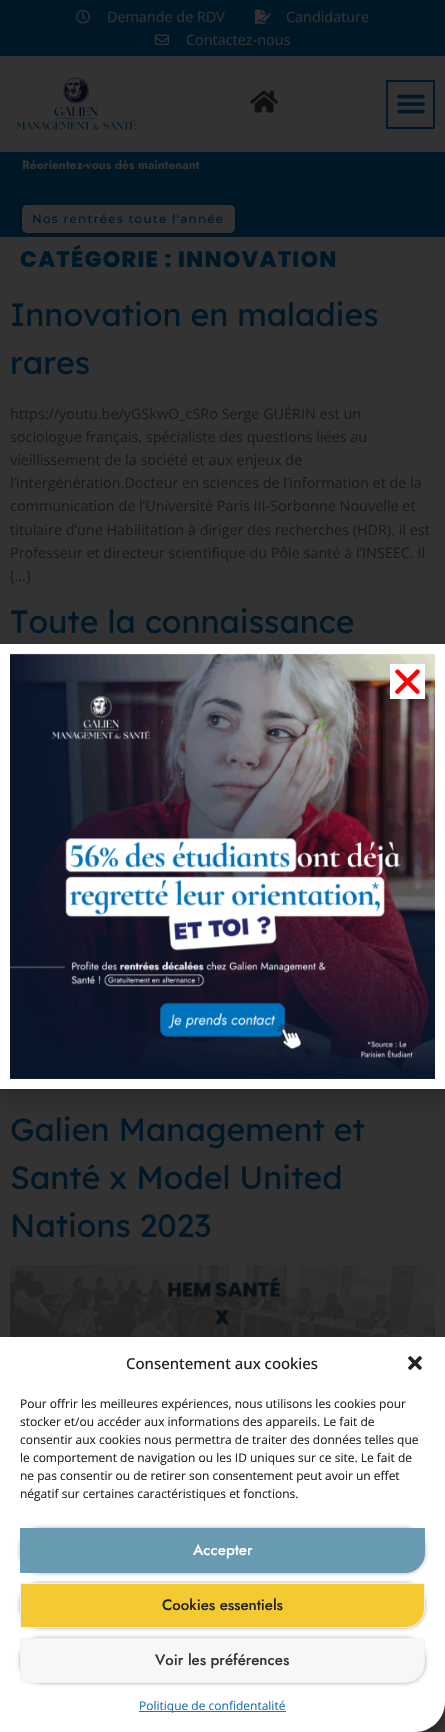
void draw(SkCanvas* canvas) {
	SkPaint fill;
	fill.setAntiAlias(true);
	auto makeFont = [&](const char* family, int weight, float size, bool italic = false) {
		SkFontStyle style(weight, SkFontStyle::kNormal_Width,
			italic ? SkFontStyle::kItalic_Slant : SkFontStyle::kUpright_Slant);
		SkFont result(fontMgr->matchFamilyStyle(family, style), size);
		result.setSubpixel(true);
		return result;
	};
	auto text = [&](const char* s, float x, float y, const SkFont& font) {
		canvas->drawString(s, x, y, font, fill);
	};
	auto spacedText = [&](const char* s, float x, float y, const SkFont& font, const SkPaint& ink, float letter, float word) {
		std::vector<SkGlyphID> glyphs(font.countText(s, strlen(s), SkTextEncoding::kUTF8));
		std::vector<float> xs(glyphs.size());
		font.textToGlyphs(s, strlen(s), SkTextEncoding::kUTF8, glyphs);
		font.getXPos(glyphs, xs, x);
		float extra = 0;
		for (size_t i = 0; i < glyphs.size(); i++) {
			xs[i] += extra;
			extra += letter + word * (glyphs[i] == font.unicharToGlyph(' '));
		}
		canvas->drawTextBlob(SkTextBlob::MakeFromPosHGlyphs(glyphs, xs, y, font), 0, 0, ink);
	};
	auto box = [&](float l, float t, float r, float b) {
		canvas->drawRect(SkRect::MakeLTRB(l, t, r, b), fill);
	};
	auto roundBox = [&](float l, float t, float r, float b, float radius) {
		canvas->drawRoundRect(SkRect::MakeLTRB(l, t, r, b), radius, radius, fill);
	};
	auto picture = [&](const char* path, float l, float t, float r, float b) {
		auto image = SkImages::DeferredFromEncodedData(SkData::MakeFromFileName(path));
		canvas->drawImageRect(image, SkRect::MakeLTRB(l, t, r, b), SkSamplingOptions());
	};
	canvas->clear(0xFF333333);
	fill.setColor(0xFF001726);
	box(0, 0, 445, 56);
	picture("image0.png", 76, 10, 90, 24);
	picture("image1.png", 255, 9, 271, 24);
	picture("image2.png", 155, 34, 169, 45);
	picture("image3.png", 16, 77, 136, 130);
	picture("image4.png", 250, 90, 279, 113);
	fill.setStyle(SkPaint::kStroke_Style);
	fill.setStrokeWidth(2);
	canvas->drawRect(SkRect::MakeLTRB(387, 81, 434, 128), fill);
	picture("image5.png", 397, 94, 425, 114);
	fill.setStyle(SkPaint::kFill_Style);
	box(0, 152, 445, 237);
	fill.setColor(0x80000000);
	fill.setMaskFilter(SkMaskFilter::MakeBlur(kNormal_SkBlurStyle, 2.5f));
	canvas->drawRoundRect(SkRect::MakeLTRB(23, 206, 234, 232), 4, 4, fill);
	fill.setMaskFilter(nullptr);
	fill.setColor(0xFF333333);
	roundBox(22, 205, 235, 233, 5);
	picture("image6.png", 10, 1265, 435, 1337);
	fill.setColor(0x33000000);
	fill.setMaskFilter(SkMaskFilter::MakeBlur(kNormal_SkBlurStyle, 11.5f));
	canvas->drawRect(SkRect::MakeLTRB(-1, 649, 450, 1100), fill);
	fill.setMaskFilter(nullptr);
	fill.setColor(0xFFFFFFFF);
	box(0, 644, 445, 1089);
	picture("image7.png", 10, 653, 435, 1079);
	box(390, 664, 425, 699);
	picture("image8.png", 395, 669, 420, 694);
	fill.setColor(0x3B000000);
	fill.setMaskFilter(SkMaskFilter::MakeBlur(kNormal_SkBlurStyle, 3));
	canvas->drawRoundRect(SkRect::MakeLTRB(0, 1343, 445, 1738), 30, 30, fill);
	fill.setMaskFilter(nullptr);
	fill.setColor(0xFFFFFFFF);
	canvas->drawPath(SkPathBuilder().moveTo(0, 1337).lineTo(445, 1337).lineTo(445, 1702).cubicTo(445, 1718.5f, 431.5f, 1732, 415, 1732).lineTo(0, 1732).close().detach(), fill);
	picture("image9.png", 408, 1356, 422, 1370);
	fill.setColor(0x80000000);
	fill.setMaskFilter(SkMaskFilter::MakeBlur(kNormal_SkBlurStyle, 2.5f));
	canvas->drawRoundRect(SkRect::MakeLTRB(21, 1529, 424, 1572), 19, 19, fill);
	fill.setMaskFilter(nullptr);
	fill.setColor(0xFF689BB2);
	canvas->drawPath(SkPathBuilder().moveTo(20.5f, 1528.5f).lineTo(424.5f, 1528.5f).lineTo(424.5f, 1553).cubicTo(424.5f, 1564, 416, 1572.5f, 405, 1572.5f).lineTo(20.5f, 1572.5f).close().detach(), fill);
	fill.setStyle(SkPaint::kStroke_Style);
	fill.setStrokeWidth(1);
	canvas->drawPath(SkPathBuilder().moveTo(20.5f, 1528.5f).lineTo(424.5f, 1528.5f).lineTo(424.5f, 1553).cubicTo(424.5f, 1564, 416, 1572.5f, 405, 1572.5f).lineTo(20.5f, 1572.5f).close().detach(), fill);
	fill.setStyle(SkPaint::kFill_Style);
	fill.setColor(0x80000000);
	fill.setMaskFilter(SkMaskFilter::MakeBlur(kNormal_SkBlurStyle, 2.5f));
	canvas->drawRoundRect(SkRect::MakeLTRB(21, 1584, 424, 1627), 19, 19, fill);
	fill.setMaskFilter(nullptr);
	fill.setColor(0xFFF4CA33);
	canvas->drawPath(SkPathBuilder().moveTo(20.5f, 1583.5f).lineTo(424.5f, 1583.5f).lineTo(424.5f, 1608).cubicTo(424.5f, 1619, 416, 1627.5f, 405, 1627.5f).lineTo(20.5f, 1627.5f).close().detach(), fill);
	fill.setStyle(SkPaint::kStroke_Style);
	fill.setColor(0xFFF2F2F2);
	canvas->drawPath(SkPathBuilder().moveTo(20.5f, 1583.5f).lineTo(424.5f, 1583.5f).lineTo(424.5f, 1608).cubicTo(424.5f, 1619, 416, 1627.5f, 405, 1627.5f).lineTo(20.5f, 1627.5f).close().detach(), fill);
	fill.setStyle(SkPaint::kFill_Style);
	fill.setColor(0x80000000);
	fill.setMaskFilter(SkMaskFilter::MakeBlur(kNormal_SkBlurStyle, 2.5f));
	canvas->drawRoundRect(SkRect::MakeLTRB(21, 1639, 424, 1682), 19, 19, fill);
	fill.setMaskFilter(nullptr);
	fill.setColor(0xFFF7F7F7);
	canvas->drawPath(SkPathBuilder().moveTo(20.5f, 1638.5f).lineTo(424.5f, 1638.5f).lineTo(424.5f, 1663).cubicTo(424.5f, 1674, 416, 1682.5f, 405, 1682.5f).lineTo(20.5f, 1682.5f).close().detach(), fill);
	fill.setStyle(SkPaint::kStroke_Style);
	fill.setColor(0xFFF2F2F2);
	canvas->drawPath(SkPathBuilder().moveTo(20.5f, 1638.5f).lineTo(424.5f, 1638.5f).lineTo(424.5f, 1663).cubicTo(424.5f, 1674, 416, 1682.5f, 405, 1682.5f).lineTo(20.5f, 1682.5f).close().detach(), fill);
	fill.setStyle(SkPaint::kFill_Style);
	fill.setColor(0xFF1E73BE);
	box(139, 1711, 286, 1712);
	auto font1 = makeFont("Open Sans", 400, 14.4f);
	fill.setColor(0xFF333333);
	text("Demande de RDV", 107, 22, font1);
	text("Candidature", 286, 22, font1);
	text("Contactez-nous", 186, 45, font1);
	auto font2 = makeFont("Jost", 700, 12);
	text("Réorientez-vous dès maintenant", 22, 169, font2);
	auto font3 = makeFont("Montserrat", 500, 12);
	fill.setColor(0xFF001726);
	spacedText("Nos rentrées toute l'année", 32, 223, font3, fill, 1.2f, 0);
	auto font4 = makeFont("Poppins", 800, 22.4f);
	spacedText("CATÉGORIE : INNOVATION", 20, 267, font4, fill, 1.2f, 0);
	auto font5 = makeFont("Lexend Deca", 400, 32);
	text("Innovation en maladies", 10, 326, font5);
	text("rares", 10, 374, font5);
	fill.setColor(0xFF181818);
	text("https://youtu.be/yGSkwO_cSRo Serge GUÉRIN est un", 10, 419, font1);
	text("sociologue français, spécialiste des questions liées au", 10, 442, font1);
	text("vieillissement de la société et aux enjeux de", 10, 465, font1);
	text("l’intergénération.Docteur en sciences de l’information et de la", 10, 488, font1);
	text("communication de l’Université Paris III-Sorbonne Nouvelle et", 10, 511, font1);
	text("titulaire d’une Habilitation à diriger des recherches (HDR), il est", 10, 535, font1);
	text("Professeur et directeur scientifique du Pôle santé à l’INSEEC. Il", 10, 558, font1);
	text("[…]", 10, 581, font1);
	fill.setColor(0xFF001726);
	text("Toute la connaissance", 10, 633, font5);
	text("Galien Management et", 10, 1141, font5);
	text("Santé x Model United", 10, 1189, font5);
	text("Nations 2023", 10, 1237, font5);
	auto font6 = makeFont("Open Sans", 500, 15);
	fill.setColor(0xFF222222);
	text("Consentement aux cookies", 126, 1369, font6);
	auto font7 = makeFont("Open Sans", 400, 12);
	text("Pour offrir les meilleures expériences, nous utilisons les cookies pour", 20, 1408, font7);
	text("stocker et/ou accéder aux informations des appareils. Le fait de", 20, 1426, font7);
	text("consentir aux cookies nous permettra de traiter des données telles que", 20, 1444, font7);
	text("le comportement de navigation ou les ID uniques sur ce site. Le fait de", 20, 1462, font7);
	text("ne pas consentir ou de retirer son consentement peut avoir un effet", 20, 1480, font7);
	text("négatif sur certaines caractéristiques et fonctions.", 20, 1498, font7);
	auto font8 = makeFont("Jost", 500, 15);
	fill.setColor(0xFFFFFFFF);
	text("Accepter", 193, 1555, font8);
	fill.setColor(0xFF222222);
	text("Cookies essentiels", 162, 1610, font8);
	fill.setColor(0xFF333333);
	text("Voir les préférences", 155, 1665, font8);
	fill.setColor(0xFF1E73BE);
	text("Politique de confidentalité", 139, 1710, font7);
}
